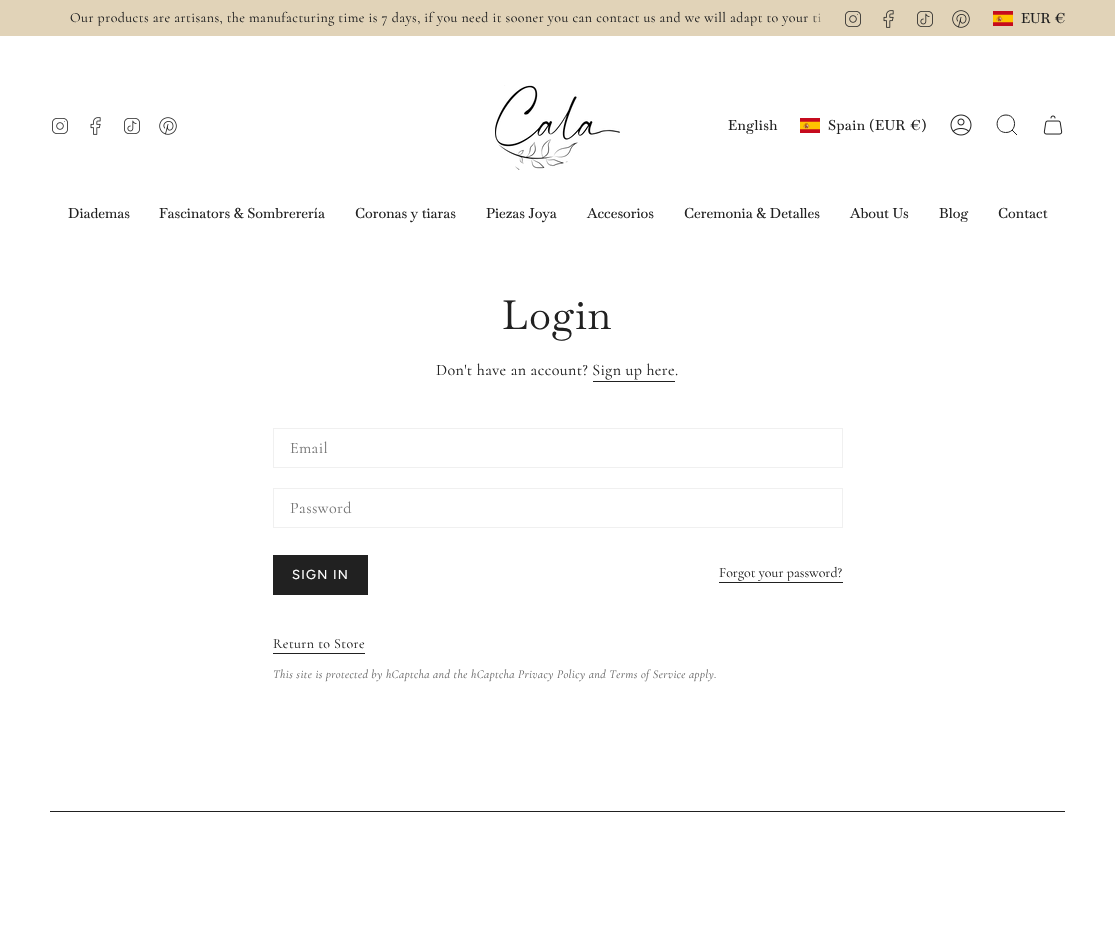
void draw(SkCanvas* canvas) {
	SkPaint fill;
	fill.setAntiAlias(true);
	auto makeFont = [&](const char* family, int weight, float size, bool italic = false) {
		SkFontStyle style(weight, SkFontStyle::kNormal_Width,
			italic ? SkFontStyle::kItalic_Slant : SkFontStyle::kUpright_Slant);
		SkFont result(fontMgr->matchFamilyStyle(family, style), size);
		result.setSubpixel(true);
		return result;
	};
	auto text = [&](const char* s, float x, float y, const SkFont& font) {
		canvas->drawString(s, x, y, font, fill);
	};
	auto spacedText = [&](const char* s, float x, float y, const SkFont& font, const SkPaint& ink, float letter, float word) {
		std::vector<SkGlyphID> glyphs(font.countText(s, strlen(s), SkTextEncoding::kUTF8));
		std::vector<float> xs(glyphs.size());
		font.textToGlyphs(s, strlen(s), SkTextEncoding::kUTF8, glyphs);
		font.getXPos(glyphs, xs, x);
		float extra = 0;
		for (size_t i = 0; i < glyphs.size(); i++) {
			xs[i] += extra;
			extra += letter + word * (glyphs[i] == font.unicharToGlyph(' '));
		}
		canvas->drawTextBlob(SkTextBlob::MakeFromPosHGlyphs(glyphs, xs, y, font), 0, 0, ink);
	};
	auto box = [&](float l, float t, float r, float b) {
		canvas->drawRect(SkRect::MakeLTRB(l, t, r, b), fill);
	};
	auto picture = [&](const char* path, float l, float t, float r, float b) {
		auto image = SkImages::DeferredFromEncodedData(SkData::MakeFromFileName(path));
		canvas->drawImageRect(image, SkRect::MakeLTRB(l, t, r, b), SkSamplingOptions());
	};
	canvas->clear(0xFFFFFFFF);
	fill.setColor(0xFFE1D3B8);
	box(0, 0, 1115, 36);
	picture("image0.png", 845, 11, 861, 27);
	picture("image1.png", 883, 10, 894, 28);
	picture("image2.png", 917, 11, 933, 27);
	picture("image3.png", 952, 10, 970, 28);
	picture("image4.png", 993, 11, 1013, 26);
	picture("image5.png", 52, 118, 68, 134);
	picture("image6.png", 90, 117, 101, 135);
	picture("image7.png", 124, 118, 140, 134);
	picture("image8.png", 159, 117, 177, 135);
	picture("image9.png", 495, 85, 620, 170);
	picture("image10.png", 800, 118, 820, 133);
	picture("image11.png", 950, 114, 972, 136);
	fill.setStyle(SkPaint::kStroke_Style);
	fill.setStrokeWidth(1);
	fill.setColor(0xFF212121);
	canvas->drawPath(SkPathBuilder().moveTo(1006, 115).cubicTo(1017.5f, 115, 1017.5f, 133, 1005.5f, 132.5f).cubicTo(994, 132, 994.5f, 115, 1006, 115).close().moveTo(1012, 130).lineTo(1017, 135).detach(), fill);
	picture("image12.png", 1043, 115, 1063, 135);
	fill.setStyle(SkPaint::kFill_Style);
	box(593, 381, 675, 382);
	fill.setStyle(SkPaint::kStroke_Style);
	fill.setColor(0xFFF0F0F0);
	canvas->drawRect(SkRect::MakeLTRB(273.5f, 428.5f, 842.5f, 467.5f), fill);
	canvas->drawRect(SkRect::MakeLTRB(273.5f, 488.5f, 842.5f, 527.5f), fill);
	fill.setStyle(SkPaint::kFill_Style);
	fill.setColor(0xFF212121);
	box(273, 555, 368, 595);
	box(719, 582, 843, 583);
	box(273, 653, 365, 654);
	box(50, 811, 1065, 812);
	auto font1 = makeFont("Cormorant", 400, 14);
	spacedText("Our products are artisans, the manufacturing time is 7 days, if you need it sooner you can contact us and we will adapt to your ti", 70, 22, font1, fill, 0.4f, 0);
	{
		const SkColor colors[] = {0xFFE1D3B8, 0x00E1D3B8};
		const float stops[] = {0.5f, 1};
		const SkPoint ends[] = {{843, 19}, {811, 19}};
		fill.setShader(SkGradientShader::MakeLinear(ends, colors, stops, 2, SkTileMode::kClamp));
		fill.setAlpha(255);
	}
	box(813, 13, 821, 23);
	auto font2 = makeFont("Baskervville", 500, 14);
	fill.setShader(nullptr);
	fill.setColor(0xFF212121);
	text("EUR €", 1021, 23, font2);
	spacedText("English", 728, 130, font2, fill, 0.4f, 0);
	spacedText("Spain (EUR €)", 828, 130, font2, fill, 0.4f, 0);
	text("Diademas", 68, 218, font2);
	text("Fascinators & Sombrerería", 159, 218, font2);
	text("Coronas y tiaras", 355, 218, font2);
	text("Piezas Joya", 486, 218, font2);
	text("Accesorios", 587, 218, font2);
	text("Ceremonia & Detalles", 684, 218, font2);
	text("About Us", 850, 218, font2);
	text("Blog", 939, 218, font2);
	text("Contact", 998, 218, font2);
	auto font3 = makeFont("Baskervville", 400, 40);
	spacedText("Login", 502, 329, font3, fill, 1, 0);
	auto font4 = makeFont("Cormorant", 400, 16);
	spacedText("Don't have an account? Sign up here.", 436, 375, font4, fill, 0.4f, 0);
	fill.setColor(0xFF757575);
	spacedText("Email", 290, 453, font4, fill, 0.4f, 0);
	spacedText("Password", 290, 513, font4, fill, 0.4f, 0);
	auto font5 = makeFont("Figtree", 400, 13);
	fill.setColor(0xFFFFFFFF);
	spacedText("SIGN IN", 292, 579, font5, fill, 1.25f, 0);
	fill.setColor(0xFF212121);
	text("Forgot your password?", 719, 577, font1);
	spacedText("Return to Store", 273, 648, font1, fill, 0.4f, 0);
	auto font6 = makeFont("Cormorant", 400, 12, true);
	fill.setColor(0xFF646464);
	spacedText("This site is protected by hCaptcha and the hCaptcha Privacy Policy and Terms of Service apply.", 273, 678, font6, fill, 0.4f, 0);
}
